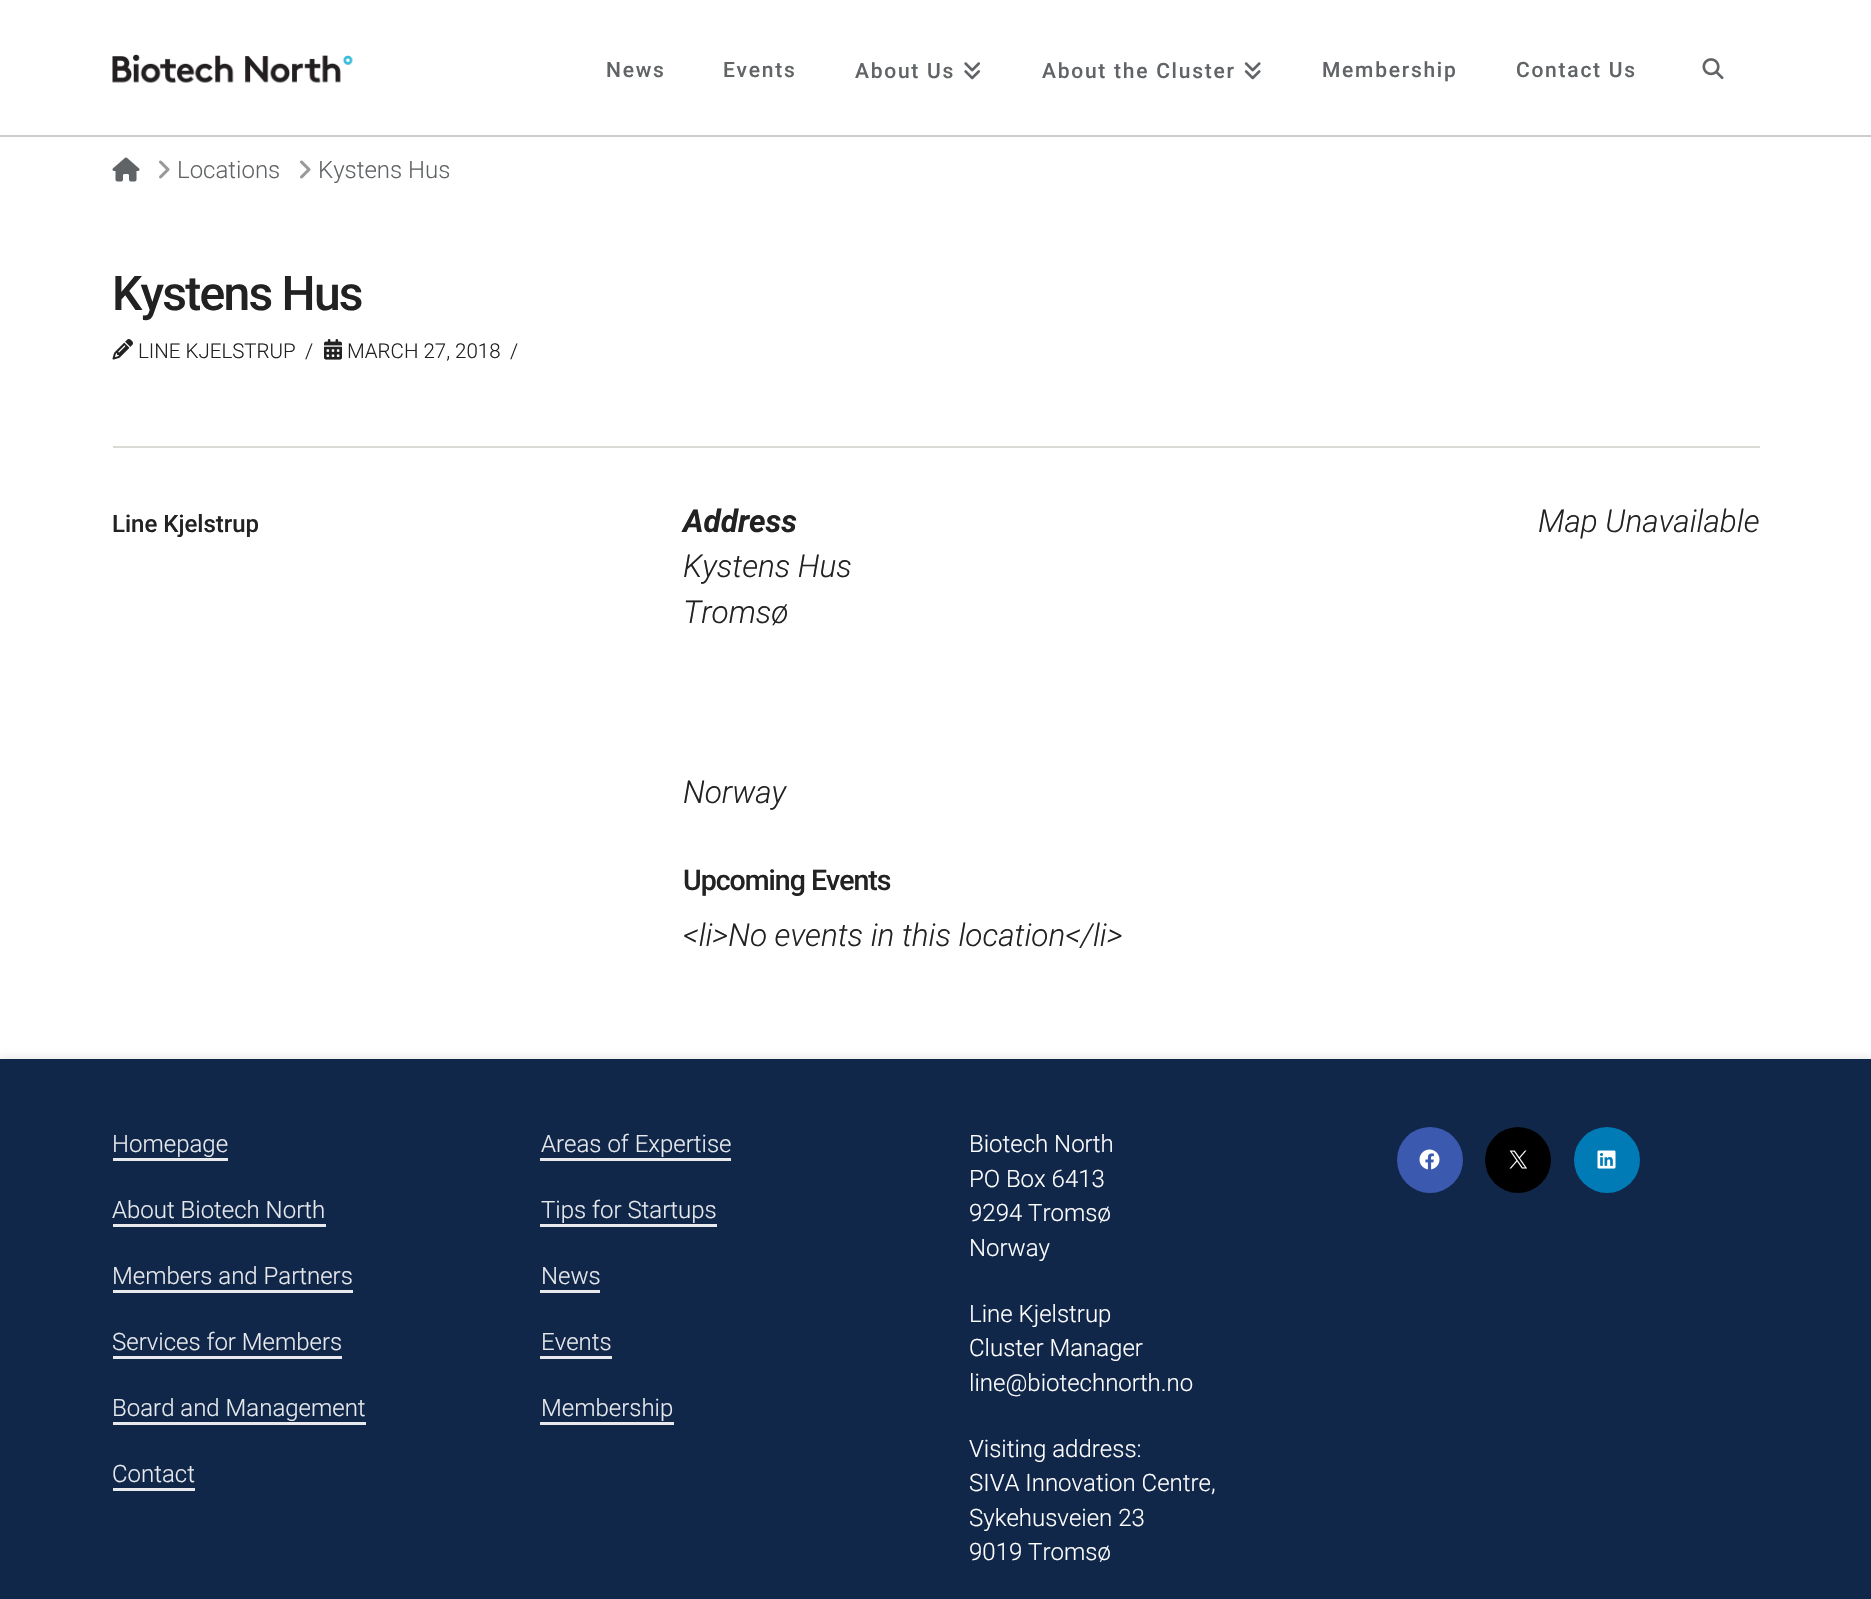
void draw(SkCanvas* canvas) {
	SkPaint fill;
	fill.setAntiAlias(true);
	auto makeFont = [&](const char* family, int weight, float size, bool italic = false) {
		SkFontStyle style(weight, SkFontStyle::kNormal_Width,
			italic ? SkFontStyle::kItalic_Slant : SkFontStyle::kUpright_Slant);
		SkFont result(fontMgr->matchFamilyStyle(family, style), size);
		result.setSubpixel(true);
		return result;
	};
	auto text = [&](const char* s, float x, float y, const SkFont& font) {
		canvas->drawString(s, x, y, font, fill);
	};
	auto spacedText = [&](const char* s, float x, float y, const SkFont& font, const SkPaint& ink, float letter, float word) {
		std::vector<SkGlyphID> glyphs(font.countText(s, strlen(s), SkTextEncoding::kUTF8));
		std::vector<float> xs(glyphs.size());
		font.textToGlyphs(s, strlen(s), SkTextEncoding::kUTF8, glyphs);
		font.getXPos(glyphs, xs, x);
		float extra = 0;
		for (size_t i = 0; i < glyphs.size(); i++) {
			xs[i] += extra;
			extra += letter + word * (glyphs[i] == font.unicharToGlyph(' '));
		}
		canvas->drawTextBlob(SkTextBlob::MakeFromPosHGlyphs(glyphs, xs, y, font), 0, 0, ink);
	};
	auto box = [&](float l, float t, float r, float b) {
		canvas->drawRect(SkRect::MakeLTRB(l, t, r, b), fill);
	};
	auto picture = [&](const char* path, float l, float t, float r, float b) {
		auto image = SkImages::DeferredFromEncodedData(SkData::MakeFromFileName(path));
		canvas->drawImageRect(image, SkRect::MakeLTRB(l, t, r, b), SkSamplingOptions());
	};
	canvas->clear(0xFFFFFFFF);
	fill.setColor(0xFFCCCCCC);
	box(0, 135, 1871, 137);
	picture("image0.png", 112, 54, 353, 83);
	picture("image1.png", 964, 62, 980, 80);
	picture("image2.png", 1244, 62, 1261, 80);
	picture("image3.png", 1702, 58, 1724, 80);
	picture("image4.png", 112, 157, 140, 182);
	picture("image5.png", 159, 160, 170, 179);
	picture("image5.png", 300, 160, 311, 179);
	picture("image6.png", 112, 339, 133, 360);
	picture("image7.png", 324, 339, 342, 360);
	fill.setColor(0xFFD9D9D6);
	box(113, 446, 1760, 448);
	fill.setColor(0x12000000);
	fill.setMaskFilter(SkMaskFilter::MakeBlur(kNormal_SkBlurStyle, 3));
	canvas->drawRect(SkRect::MakeLTRB(0, 1056, 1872, 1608), fill);
	fill.setMaskFilter(nullptr);
	fill.setColor(0xFF10274A);
	box(0, 1059, 1871, 1599);
	fill.setColor(0xFFE7E9ED);
	box(113, 1158, 228, 1161);
	box(113, 1224, 326, 1227);
	box(113, 1290, 353, 1293);
	box(113, 1356, 342, 1359);
	box(113, 1422, 366, 1425);
	box(113, 1488, 195, 1491);
	box(540, 1158, 731, 1161);
	box(540, 1224, 717, 1227);
	box(540, 1290, 600, 1293);
	box(540, 1356, 612, 1359);
	box(540, 1422, 674, 1425);
	fill.setColor(0xFF3B59AF);
	canvas->drawCircle(1430, 1160, 33, fill);
	picture("image8.png", 1419, 1149, 1440, 1170);
	fill.setColor(0xFF000000);
	canvas->drawCircle(1518, 1160, 33, fill);
	picture("image9.png", 1509, 1150, 1527, 1169);
	fill.setColor(0xFF007BB6);
	canvas->drawCircle(1607, 1160, 33, fill);
	picture("image10.png", 1597, 1150, 1616, 1169);
	auto font1 = makeFont("Roboto", 500, 21);
	fill.setColor(0xFF616466);
	spacedText("News", 606, 77, font1, fill, 1.75f, 0);
	spacedText("Events", 723, 77, font1, fill, 1.75f, 0);
	spacedText("About Us", 855, 78, font1, fill, 1.75f, 0);
	spacedText("About the Cluster", 1042, 78, font1, fill, 1.75f, 0);
	spacedText("Membership", 1322, 77, font1, fill, 1.75f, 0);
	spacedText("Contact Us", 1516, 77, font1, fill, 1.75f, 0);
	auto font2 = makeFont("Roboto", 300, 24);
	text("Locations", 177, 178, font2);
	text("Kystens Hus", 318, 178, font2);
	auto font3 = makeFont("Roboto", 500, 48);
	fill.setColor(0xFF222222);
	spacedText("Kystens Hus", 112, 310, font3, fill, -1.75f, 0);
	auto font4 = makeFont("Roboto", 300, 20.5f);
	text("LINE KJELSTRUP", 138, 358, font4);
	text("/", 305, 358, font4);
	text("MARCH 27, 2018", 347, 358, font4);
	text("/", 510, 358, font4);
	auto font5 = makeFont("Roboto", 500, 24);
	text("Line Kjelstrup", 112, 532, font5);
	auto font6 = makeFont("Roboto", 700, 31.5f, true);
	text("Address", 683, 532, font6);
	auto font7 = makeFont("Roboto", 300, 31.5f, true);
	text("Kystens Hus", 683, 577, font7);
	text("Tromsø", 683, 623, font7);
	text("Norway", 683, 803, font7);
	text("Map Unavailable", 1538, 532, font7);
	auto font8 = makeFont("Roboto", 500, 28.5f);
	spacedText("Upcoming Events", 683, 890, font8, fill, -1, 0);
	text("<li>No events in this location</li>", 683, 946, font7);
	fill.setColor(0xFFE7E9ED);
	text("Homepage", 112, 1152, font2);
	text("About Biotech North", 112, 1218, font2);
	text("Members and Partners", 112, 1284, font2);
	text("Services for Members", 112, 1350, font2);
	text("Board and Management", 112, 1416, font2);
	text("Contact", 112, 1482, font2);
	text("Areas of Expertise", 541, 1152, font2);
	text("Tips for Startups", 541, 1218, font2);
	text("News", 541, 1284, font2);
	text("Events", 541, 1350, font2);
	text("Membership", 541, 1416, font2);
	fill.setColor(0xFFFFFFFF);
	text("Biotech North", 969, 1152, font2);
	text("PO Box 6413", 969, 1187, font2);
	text("9294 Tromsø", 969, 1221, font2);
	text("Norway", 969, 1256, font2);
	text("Line Kjelstrup", 969, 1322, font2);
	text("Cluster Manager", 969, 1356, font2);
	text("line@biotechnorth.no", 969, 1391, font2);
	text("Visiting address:", 969, 1457, font2);
	text("SIVA Innovation Centre,", 969, 1491, font2);
	text("Sykehusveien 23", 969, 1526, font2);
	text("9019 Tromsø", 969, 1560, font2);
}
